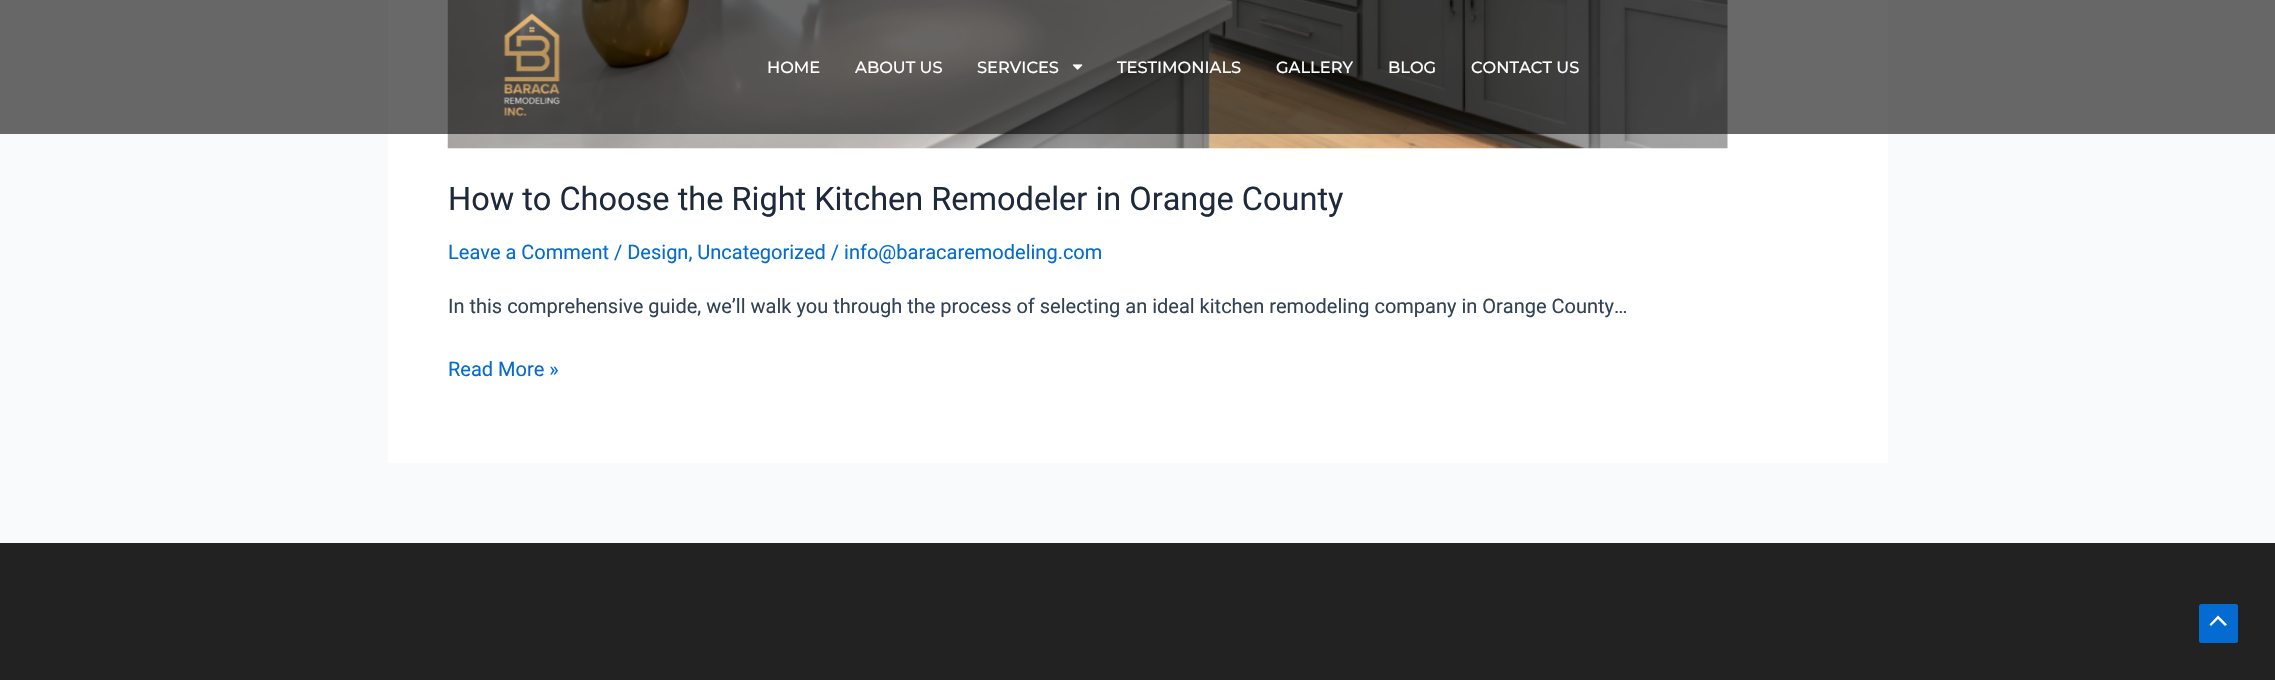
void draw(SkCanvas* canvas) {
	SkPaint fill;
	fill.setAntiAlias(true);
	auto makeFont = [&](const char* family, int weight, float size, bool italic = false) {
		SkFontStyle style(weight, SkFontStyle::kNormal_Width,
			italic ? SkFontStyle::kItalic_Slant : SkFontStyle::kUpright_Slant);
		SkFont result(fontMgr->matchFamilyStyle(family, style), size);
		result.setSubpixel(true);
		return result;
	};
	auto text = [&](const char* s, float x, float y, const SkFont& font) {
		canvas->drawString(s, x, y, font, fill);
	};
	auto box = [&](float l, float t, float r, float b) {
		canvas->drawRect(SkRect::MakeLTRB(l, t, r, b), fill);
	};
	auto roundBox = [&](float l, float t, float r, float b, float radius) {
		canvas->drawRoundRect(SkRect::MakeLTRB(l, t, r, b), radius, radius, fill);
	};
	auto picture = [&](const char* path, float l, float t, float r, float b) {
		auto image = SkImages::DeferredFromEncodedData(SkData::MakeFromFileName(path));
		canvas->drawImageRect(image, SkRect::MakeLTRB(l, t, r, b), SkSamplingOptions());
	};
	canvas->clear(0xFFF9FAFB);
	fill.setColor(0xFFFFFFFF);
	box(388, 0, 1888, 463);
	picture("image2.png", 447, 0, 1728, 149);
	fill.setColor(0x96000000);
	box(0, 0, 2275, 134);
	picture("image0.png", 503, 13, 561, 117);
	picture("image1.png", 1072, 64, 1083, 70);
	fill.setColor(0xFF222222);
	box(0, 543, 2275, 680);
	fill.setColor(0xFF046BD2);
	roundBox(2199, 604, 2238, 643, 2.5f);
	fill.setColor(0xFFFFFFFF);
	canvas->drawPath(SkPathBuilder().moveTo(2227, 624.5f).lineTo(2218, 615.5f).lineTo(2209.5f, 624.5f).lineTo(2211, 626).lineTo(2218, 619).lineTo(2225, 626).close().detach(), fill);
	auto font1 = makeFont("Montserrat", 500, 16.25f);
	text("HOME", 767, 73, font1);
	text("ABOUT US", 855, 73, font1);
	text("SERVICES", 977, 73, font1);
	text("TESTIMONIALS", 1117, 73, font1);
	text("GALLERY", 1276, 73, font1);
	text("BLOG", 1388, 73, font1);
	text("CONTACT US", 1471, 73, font1);
	auto font2 = makeFont("Roboto", 400, 32.5f);
	fill.setColor(0xFF1E293B);
	text("How to Choose the Right Kitchen Remodeler in Orange County", 448, 210, font2);
	auto font3 = makeFont("Roboto", 400, 20);
	fill.setColor(0xFF046BD2);
	text("Leave a Comment / Design, Uncategorized / info@baracaremodeling.com", 448, 259, font3);
	fill.setColor(0xFF334155);
	text("In this comprehensive guide, we’ll walk you through the process of selecting an ideal kitchen remodeling company in Orange County…", 448, 313, font3);
	fill.setColor(0xFF046BD2);
	text("Read More »", 448, 376, font3);
}
